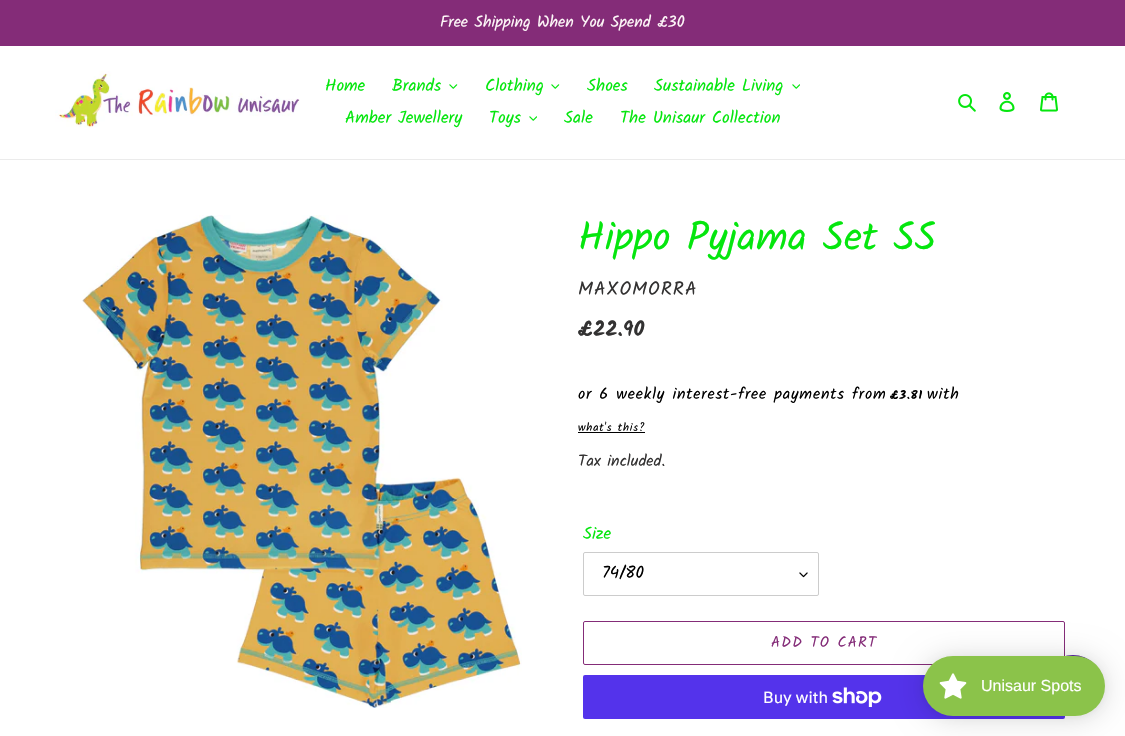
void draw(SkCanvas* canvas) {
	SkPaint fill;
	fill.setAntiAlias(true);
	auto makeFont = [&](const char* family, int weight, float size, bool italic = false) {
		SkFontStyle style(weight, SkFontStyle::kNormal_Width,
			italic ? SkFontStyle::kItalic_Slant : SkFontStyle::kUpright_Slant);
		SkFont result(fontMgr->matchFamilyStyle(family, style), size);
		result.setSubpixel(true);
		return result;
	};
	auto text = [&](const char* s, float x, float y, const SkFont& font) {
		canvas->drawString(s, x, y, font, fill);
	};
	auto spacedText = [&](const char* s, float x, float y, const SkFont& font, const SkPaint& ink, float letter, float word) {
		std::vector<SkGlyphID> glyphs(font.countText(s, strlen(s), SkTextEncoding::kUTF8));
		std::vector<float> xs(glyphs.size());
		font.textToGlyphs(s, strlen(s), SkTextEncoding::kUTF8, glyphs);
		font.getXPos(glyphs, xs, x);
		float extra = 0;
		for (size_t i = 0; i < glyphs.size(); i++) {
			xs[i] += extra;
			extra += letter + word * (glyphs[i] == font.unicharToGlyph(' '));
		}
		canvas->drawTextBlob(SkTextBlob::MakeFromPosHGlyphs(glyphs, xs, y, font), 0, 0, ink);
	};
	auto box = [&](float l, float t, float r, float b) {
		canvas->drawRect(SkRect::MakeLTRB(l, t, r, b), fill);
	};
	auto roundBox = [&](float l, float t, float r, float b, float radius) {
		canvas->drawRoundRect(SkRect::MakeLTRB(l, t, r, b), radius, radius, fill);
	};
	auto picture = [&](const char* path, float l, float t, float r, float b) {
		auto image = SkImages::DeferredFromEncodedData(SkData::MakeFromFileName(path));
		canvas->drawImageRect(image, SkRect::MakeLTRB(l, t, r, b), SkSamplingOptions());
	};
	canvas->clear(0xFFFFFFFF);
	fill.setColor(0xFF842C78);
	box(0, 0, 1125, 46);
	fill.setColor(0xFFEBEBEB);
	box(0, 159, 1125, 160);
	picture("image0.png", 55, 71, 300, 128);
	picture("image1.png", 449, 84, 458, 89);
	picture("image1.png", 551, 84, 560, 89);
	picture("image2.png", 792, 84, 800, 89);
	picture("image2.png", 529, 116, 537, 121);
	picture("image3.png", 958, 94, 976, 112);
	picture("image4.png", 999, 92, 1015, 112);
	picture("image5.png", 1040, 92, 1058, 112);
	picture("image6.png", 82, 215, 522, 708);
	fill.setColor(0xFF000000);
	box(578, 432, 645, 433);
	picture("image7.png", 799, 572, 808, 578);
	fill.setStyle(SkPaint::kStroke_Style);
	fill.setStrokeWidth(1);
	fill.setColor(0xFFCCCCCC);
	canvas->drawRoundRect(SkRect::MakeLTRB(583.5f, 552.5f, 818.5f, 595.5f), 1.5f, 1.5f, fill);
	fill.setColor(0xFF842C78);
	canvas->drawRoundRect(SkRect::MakeLTRB(583.5f, 621.5f, 1064.5f, 664.5f), 1.5f, 1.5f, fill);
	fill.setStyle(SkPaint::kFill_Style);
	fill.setColor(0xFF5433EB);
	roundBox(583, 675, 1065, 719, 2);
	picture("image8.png", 832, 687, 882, 707);
	fill.setColor(0xFF55259F);
	canvas->drawCircle(1073, 685, 30, fill);
	fill.setColor(0x26000000);
	fill.setMaskFilter(SkMaskFilter::MakeBlur(kNormal_SkBlurStyle, 15));
	canvas->drawRoundRect(SkRect::MakeLTRB(923, 658, 1105, 718), 30, 30, fill);
	fill.setMaskFilter(nullptr);
	fill.setColor(0x0D000000);
	fill.setMaskFilter(SkMaskFilter::MakeBlur(kNormal_SkBlurStyle, 3));
	canvas->drawRoundRect(SkRect::MakeLTRB(923, 657, 1105, 717), 30, 30, fill);
	fill.setMaskFilter(nullptr);
	fill.setColor(0xFF8BC34A);
	roundBox(923, 656, 1105, 716, 30);
	picture("image9.png", 939, 673, 967, 699);
	auto font1 = makeFont("Kalam", 400, 16);
	fill.setColor(0xFFFEF8F8);
	text("Free Shipping When You Spend £30", 440, 27, font1);
	auto font2 = makeFont("Kalam", 400, 17);
	fill.setColor(0xFF05E60E);
	text("Home", 325, 91, font2);
	text("Brands", 392, 91, font2);
	text("Clothing", 485, 91, font2);
	text("Shoes", 587, 91, font2);
	text("Sustainable Living", 654, 91, font2);
	text("Amber Jewellery", 345, 123, font2);
	text("Toys", 489, 123, font2);
	text("Sale", 564, 123, font2);
	text("The Unisaur Collection", 620, 123, font2);
	auto font3 = makeFont("Kalam", 400, 40);
	text("Hippo Pyjama Set SS", 578, 250, font3);
	auto font4 = makeFont("Kalam", 400, 19);
	fill.setColor(0xFF333232);
	spacedText("MAXOMORRA", 578, 295, font4, fill, 1, 0);
	auto font5 = makeFont("Kalam", 700, 21);
	text("£22.90", 578, 336, font5);
	fill.setColor(0xFF000000);
	spacedText("or 6 weekly interest-free payments from", 578, 399, font1, fill, 0.8f, 0);
	auto font6 = makeFont("Kalam", 700, 12);
	spacedText("£3.81", 890, 399, font6, fill, 0.8f, 0);
	spacedText("with", 927, 399, font1, fill, 0.8f, 0);
	auto font7 = makeFont("Kalam", 400, 11.25f);
	spacedText("what's this?", 578, 431, font7, fill, 0.8f, 0);
	fill.setColor(0xFF333232);
	text("Tax included.", 578, 466, font1);
	fill.setColor(0xFF05E60E);
	text("Size", 583, 539, font2);
	fill.setColor(0xFF000000);
	text("74/80", 602, 578, font2);
	auto font8 = makeFont("Kalam", 400, 15);
	fill.setColor(0xFF842C78);
	spacedText("ADD TO CART", 771, 647, font8, fill, 1.25f, 0);
	auto font9 = makeFont("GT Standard", 400, 16);
	fill.setColor(0xFFFFFFFF);
	text("Buy with", 763, 703, font9);
	auto font10 = makeFont("Liberation Sans", 400, 16);
	text("Unisaur Spots", 981, 691, font10);
}
